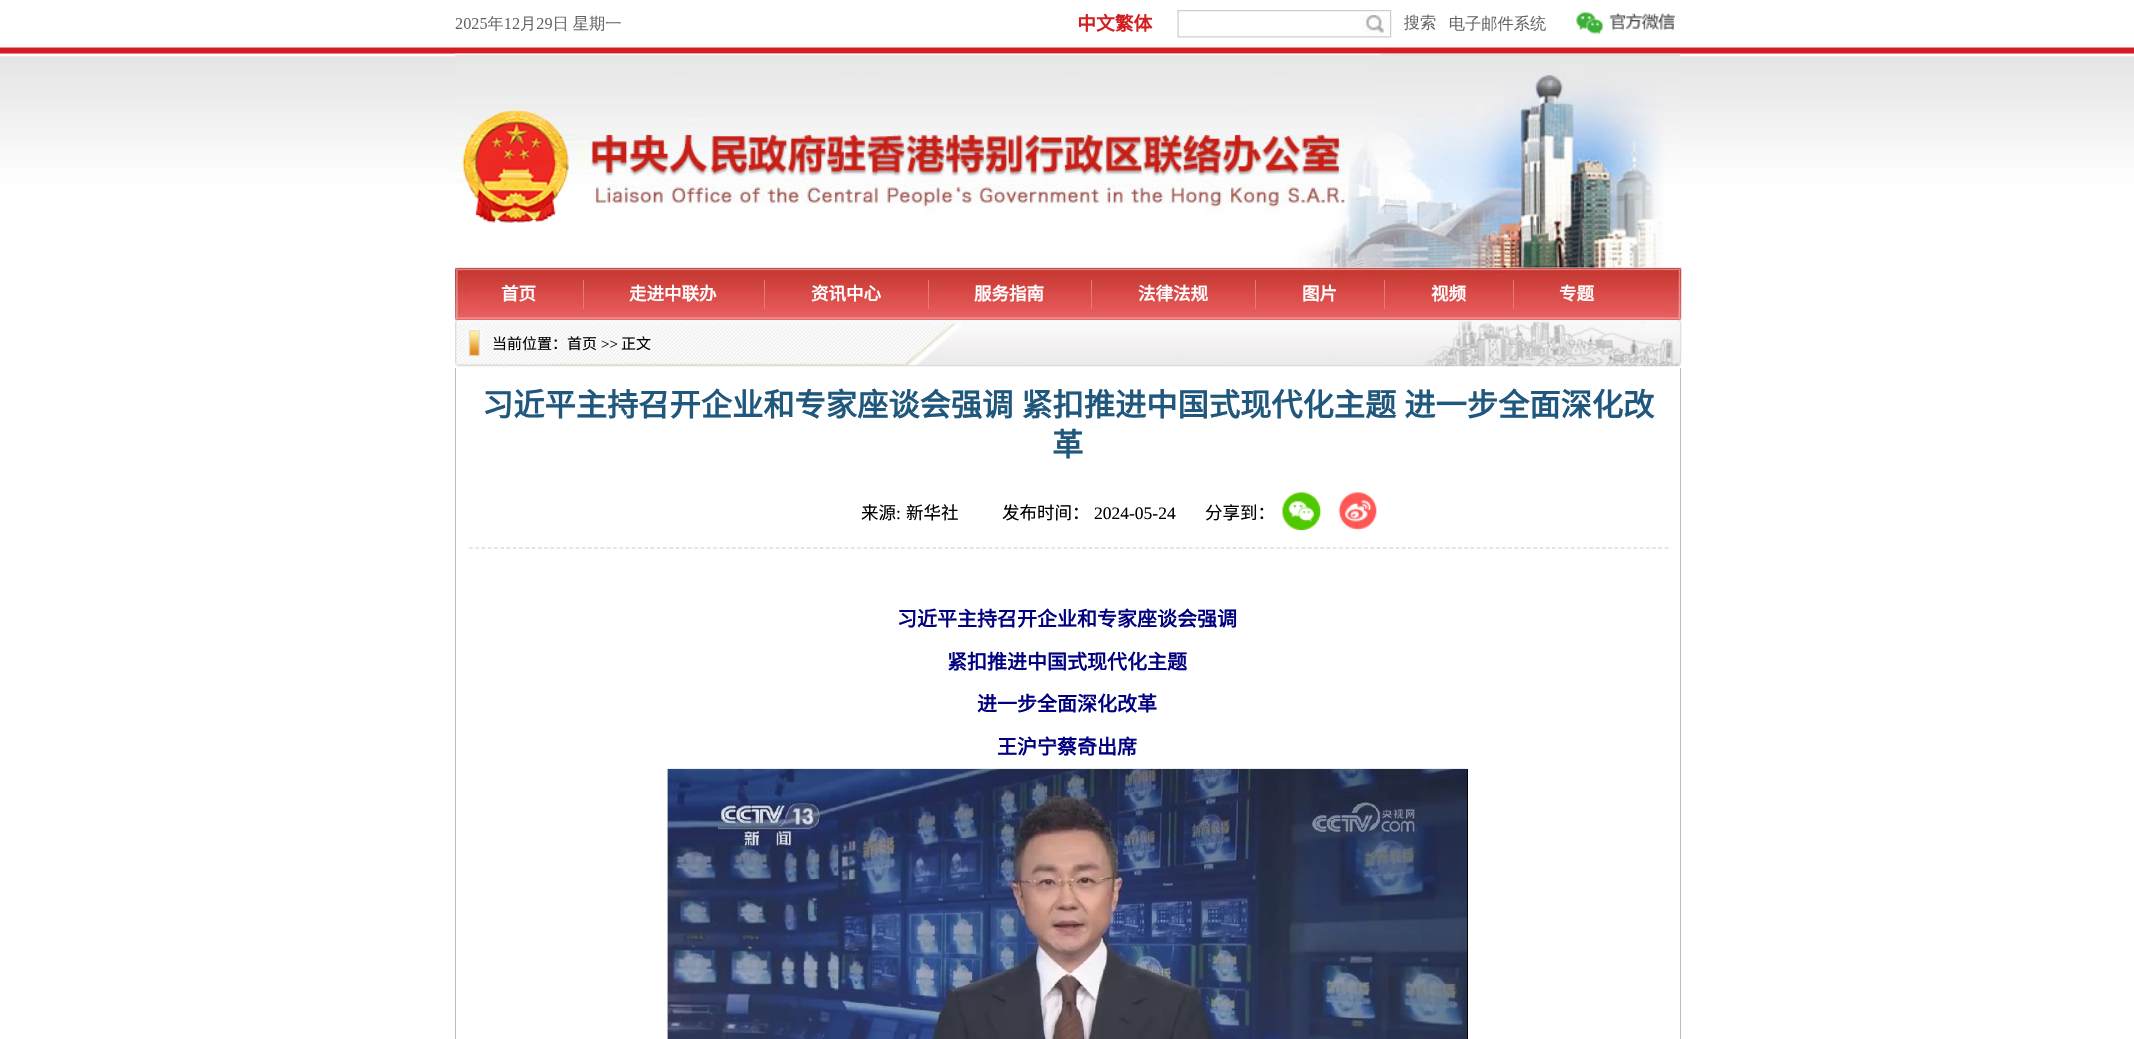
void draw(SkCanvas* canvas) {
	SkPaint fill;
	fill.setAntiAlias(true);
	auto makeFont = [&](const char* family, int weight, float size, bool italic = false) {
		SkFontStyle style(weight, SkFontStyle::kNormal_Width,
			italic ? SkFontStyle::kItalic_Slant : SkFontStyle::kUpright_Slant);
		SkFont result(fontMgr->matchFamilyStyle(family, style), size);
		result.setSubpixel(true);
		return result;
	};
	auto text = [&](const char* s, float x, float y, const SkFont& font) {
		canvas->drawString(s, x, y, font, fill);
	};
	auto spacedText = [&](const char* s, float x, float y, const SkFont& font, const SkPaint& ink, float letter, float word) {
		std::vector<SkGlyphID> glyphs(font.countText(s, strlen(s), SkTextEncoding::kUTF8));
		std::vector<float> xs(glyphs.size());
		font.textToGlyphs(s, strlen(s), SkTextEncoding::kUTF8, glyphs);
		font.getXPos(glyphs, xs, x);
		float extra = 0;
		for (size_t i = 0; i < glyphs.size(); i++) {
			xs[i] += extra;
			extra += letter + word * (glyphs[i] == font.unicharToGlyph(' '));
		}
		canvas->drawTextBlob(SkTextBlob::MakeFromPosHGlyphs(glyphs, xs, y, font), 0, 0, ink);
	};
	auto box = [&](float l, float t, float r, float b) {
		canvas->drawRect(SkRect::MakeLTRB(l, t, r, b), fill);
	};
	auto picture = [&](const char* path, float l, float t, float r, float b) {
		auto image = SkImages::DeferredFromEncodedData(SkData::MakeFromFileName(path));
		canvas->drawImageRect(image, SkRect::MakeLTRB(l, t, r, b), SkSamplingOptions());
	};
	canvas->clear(0xFFFFFFFF);
	picture("image1.png", 455, 267, 1682, 320);
	picture("image0.png", 0, 10, 2134, 268);
	fill.setColor(0xFFE97978);
	box(583, 280, 584, 309);
	box(764, 280, 765, 309);
	box(928, 280, 929, 309);
	box(1091, 280, 1092, 309);
	box(1255, 280, 1256, 309);
	box(1384, 280, 1385, 309);
	box(1513, 280, 1514, 309);
	picture("image2.png", 455, 320, 1682, 367);
	fill.setColor(0xFFBBBBBB);
	box(1680, 368, 1681, 1039);
	box(455, 368, 456, 1039);
	fill.setStyle(SkPaint::kStroke_Style);
	fill.setStrokeWidth(1.2f);
	fill.setColor(0xFFCCCCCC);
	fill.setPathEffect(SkDashPathEffect::Make({{3.75f, 2.51f}}, 0));
	canvas->drawPath(SkPathBuilder().moveTo(469, 548).lineTo(1669, 548).detach(), fill);
	fill.setPathEffect(nullptr);
	picture("image3.png", 1282, 492, 1322, 530);
	picture("image4.png", 1338, 492, 1377, 530);
	fill.setStyle(SkPaint::kFill_Style);
	fill.setColor(0xFF000000);
	box(1467, 769, 1468, 1039);
	picture("image5.png", 667, 768, 1468, 1039);
	auto font1 = makeFont("Noto Sans CJK SC", 700, 17.5f);
	fill.setColor(0xFFFFFFFF);
	text("首页", 501, 300, font1);
	text("走进中联办", 629, 300, font1);
	text("资讯中心", 811, 300, font1);
	text("服务指南", 974, 300, font1);
	text("法律法规", 1138, 300, font1);
	text("图片", 1302, 300, font1);
	text("视频", 1431, 300, font1);
	text("专题", 1559, 300, font1);
	auto font2 = makeFont("Noto Sans CJK SC", 400, 15);
	fill.setColor(0xFF000000);
	text("当前位置：首页", 492, 349, font2);
	auto font3 = makeFont("Liberation Serif", 400, 15);
	text(">>", 601, 349, font3);
	text("正文", 621, 349, font2);
	auto font4 = makeFont("Noto Sans CJK SC", 700, 31.25f);
	fill.setColor(0xFF20577D);
	spacedText("习近平主持召开企业和专家座谈会强调 紧扣推进中国式现代化主题 进一步全面深化改", 482, 416, font4, fill, 0, 1);
	text("革", 1052, 456, font4);
	auto font5 = makeFont("Noto Sans CJK SC", 400, 17.5f);
	fill.setColor(0xFF000000);
	text("来源", 861, 519, font5);
	auto font6 = makeFont("Liberation Serif", 400, 17.5f);
	text(":", 896, 519, font6);
	text("新华社", 906, 519, font5);
	text("发布时间：", 1002, 519, font5);
	text("2024-05-24", 1094, 519, font6);
	text("分享到：", 1205, 519, font5);
	auto font7 = makeFont("Noto Sans CJK SC", 700, 20);
	fill.setColor(0xFF000080);
	text("习近平主持召开企业和专家座谈会强调", 897, 626, font7);
	text("紧扣推进中国式现代化主题", 947, 669, font7);
	text("进一步全面深化改革", 977, 711, font7);
	text("王沪宁蔡奇出席", 997, 754, font7);
}
